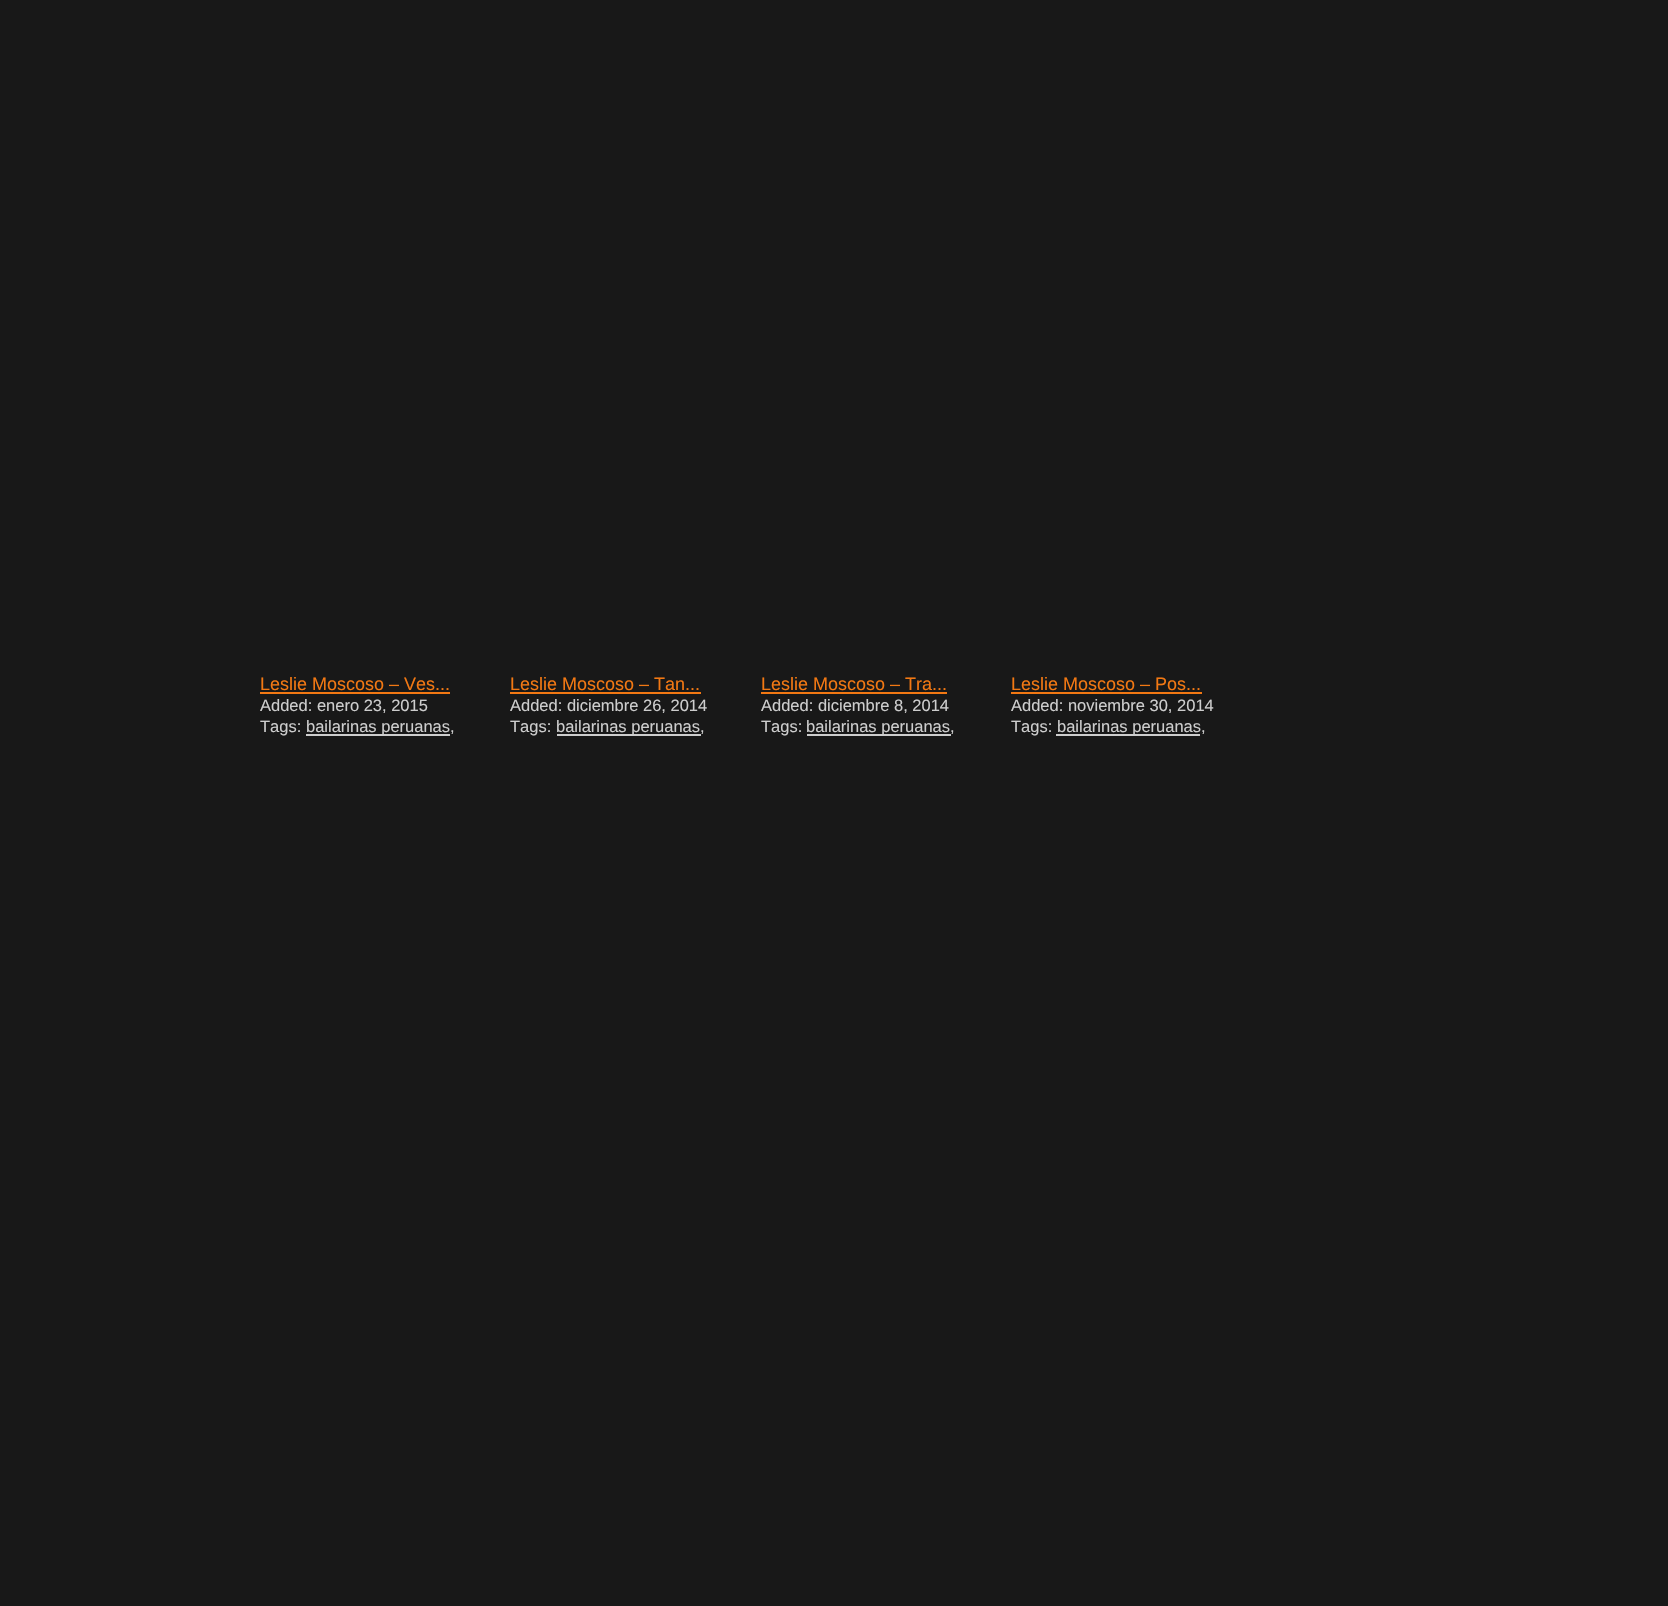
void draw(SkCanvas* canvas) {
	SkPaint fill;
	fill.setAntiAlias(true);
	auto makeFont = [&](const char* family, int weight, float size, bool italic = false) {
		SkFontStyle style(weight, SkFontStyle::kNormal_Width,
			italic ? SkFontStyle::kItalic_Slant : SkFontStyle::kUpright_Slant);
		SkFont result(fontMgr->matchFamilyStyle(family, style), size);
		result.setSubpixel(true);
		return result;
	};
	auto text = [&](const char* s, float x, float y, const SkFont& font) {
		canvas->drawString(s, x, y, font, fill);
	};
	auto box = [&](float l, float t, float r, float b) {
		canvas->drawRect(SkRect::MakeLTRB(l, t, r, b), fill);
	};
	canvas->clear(0xFF181818);
	fill.setColor(0xFFF27813);
	box(260, 692, 450, 694);
	fill.setColor(0xFFCDCDCD);
	box(306, 734, 450, 736);
	fill.setColor(0xFFF27813);
	box(510, 692, 701, 694);
	fill.setColor(0xFFCDCDCD);
	box(557, 734, 701, 736);
	fill.setColor(0xFFF27813);
	box(761, 692, 947, 694);
	fill.setColor(0xFFCDCDCD);
	box(807, 734, 951, 736);
	fill.setColor(0xFFF27813);
	box(1011, 692, 1202, 694);
	fill.setColor(0xFFCDCDCD);
	box(1056, 734, 1200, 736);
	auto font1 = makeFont("Liberation Sans", 400, 18);
	fill.setColor(0xFFF27813);
	text("Leslie Moscoso – Ves...", 260, 690, font1);
	auto font2 = makeFont("Liberation Sans", 400, 16.5f);
	fill.setColor(0xFFCDCDCD);
	text("Added: enero 23, 2015", 260, 711, font2);
	text("Tags:", 260, 732, font2);
	text("bailarinas peruanas,", 306, 732, font2);
	fill.setColor(0xFFF27813);
	text("Leslie Moscoso – Tan...", 510, 690, font1);
	fill.setColor(0xFFCDCDCD);
	text("Added: diciembre 26, 2014", 510, 711, font2);
	text("Tags:", 510, 732, font2);
	text("bailarinas peruanas,", 556, 732, font2);
	fill.setColor(0xFFF27813);
	text("Leslie Moscoso – Tra...", 761, 690, font1);
	fill.setColor(0xFFCDCDCD);
	text("Added: diciembre 8, 2014", 761, 711, font2);
	text("Tags:", 761, 732, font2);
	text("bailarinas peruanas,", 806, 732, font2);
	fill.setColor(0xFFF27813);
	text("Leslie Moscoso – Pos...", 1011, 690, font1);
	fill.setColor(0xFFCDCDCD);
	text("Added: noviembre 30, 2014", 1011, 711, font2);
	text("Tags:", 1011, 732, font2);
	text("bailarinas peruanas,", 1057, 732, font2);
}
